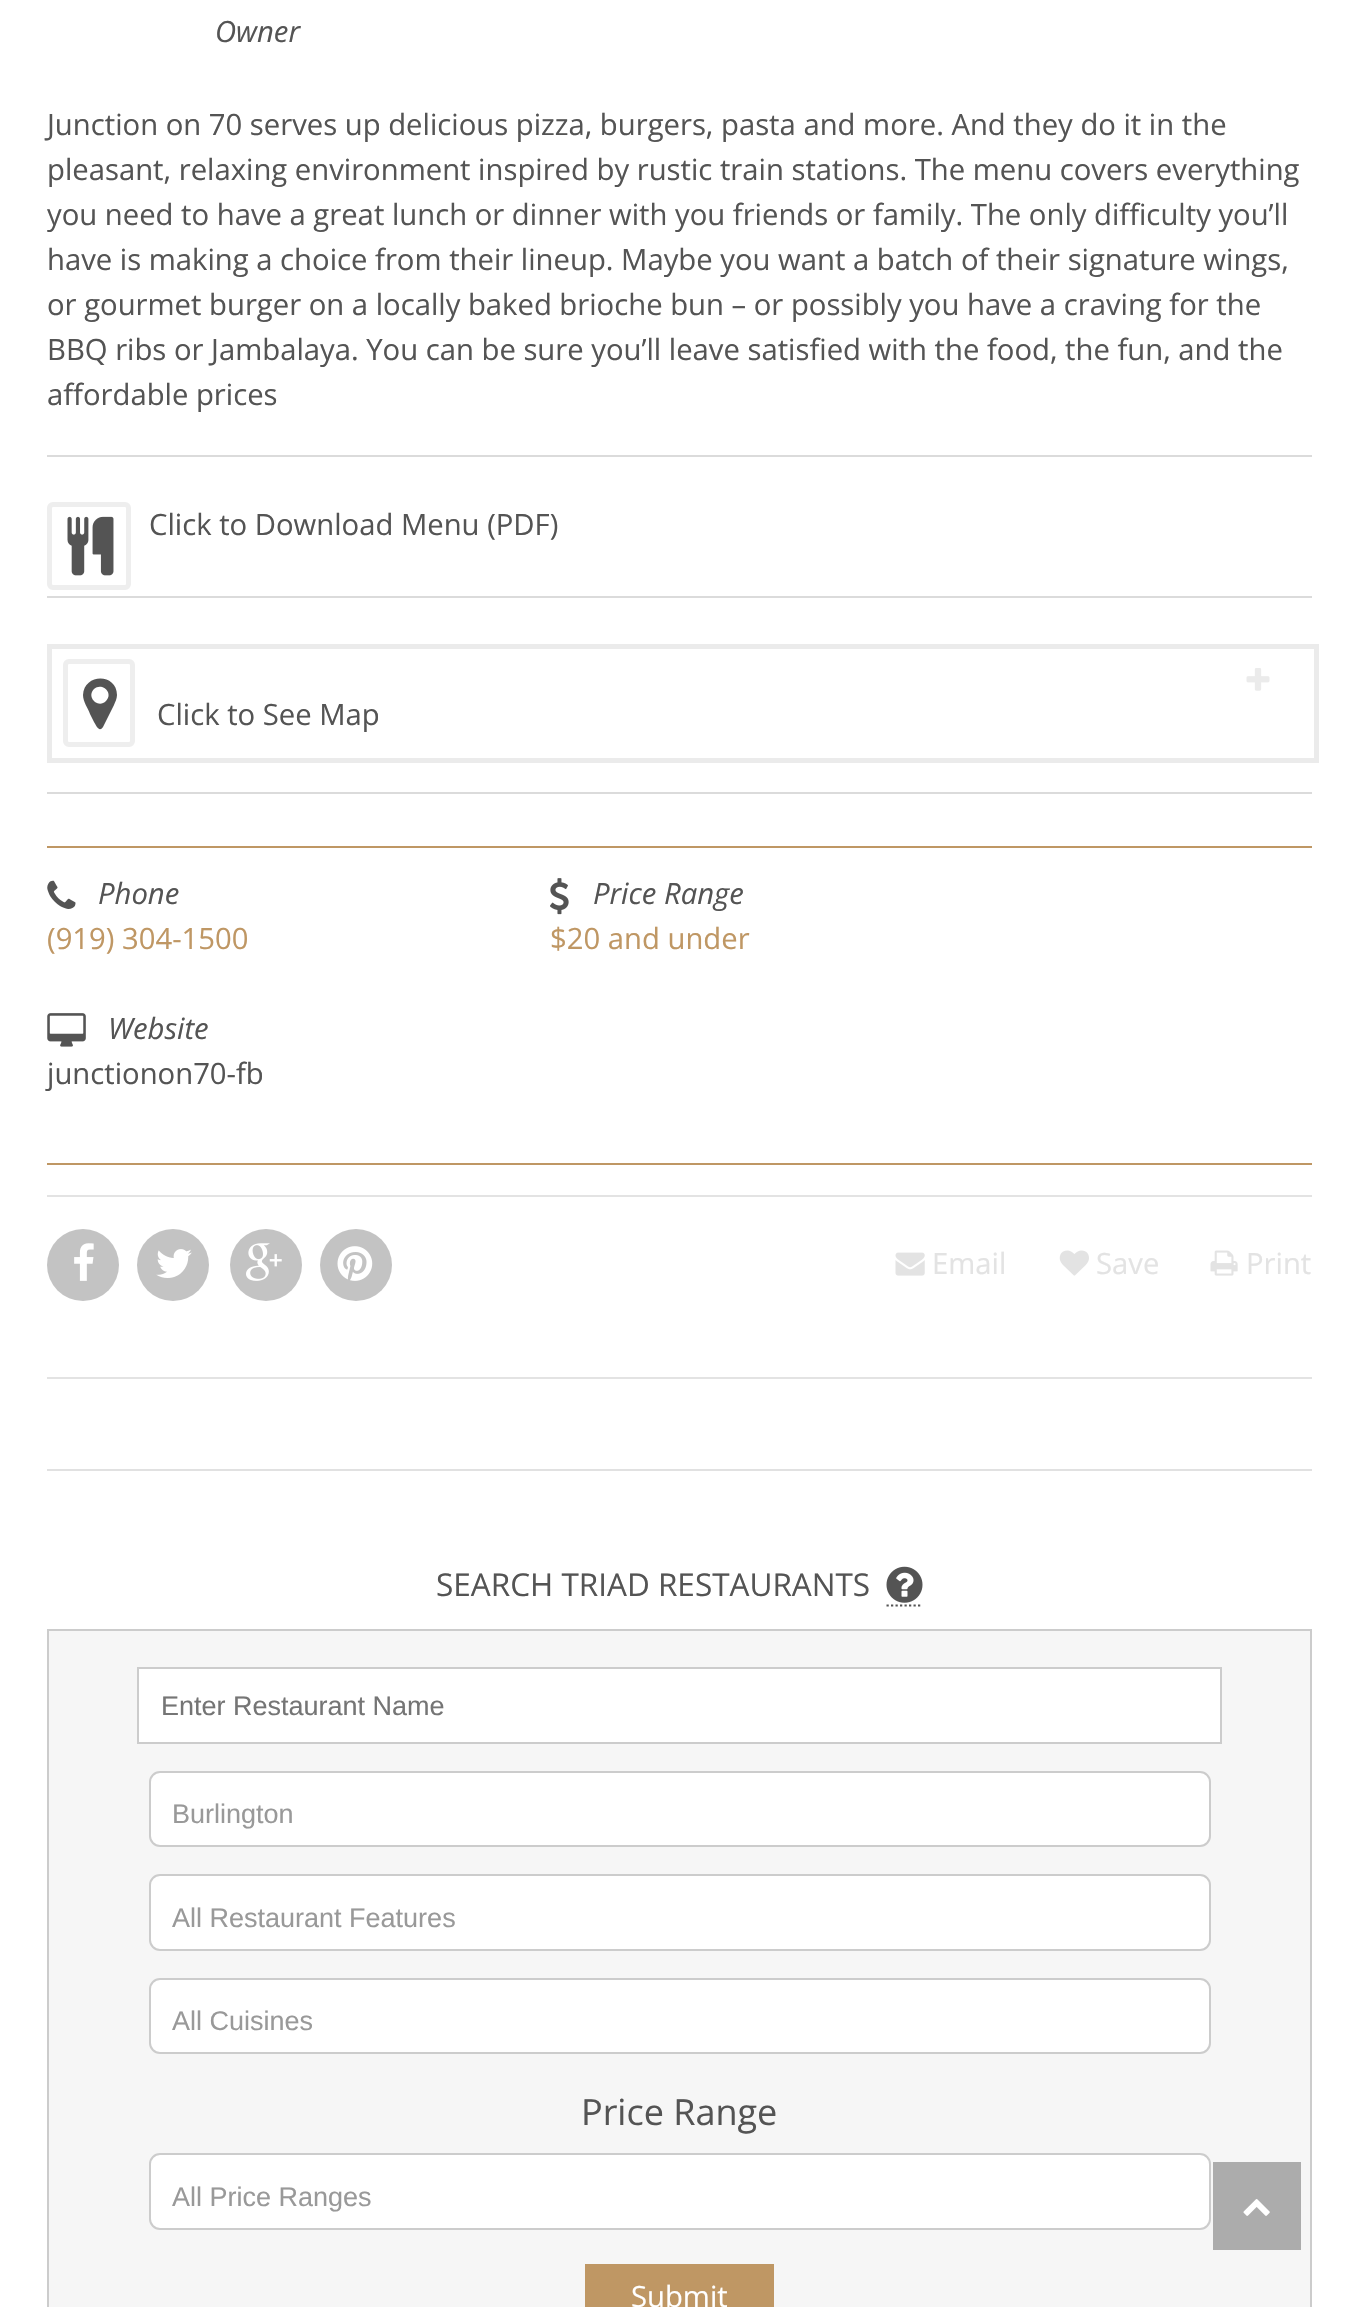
void draw(SkCanvas* canvas) {
	SkPaint fill;
	fill.setAntiAlias(true);
	auto makeFont = [&](const char* family, int weight, float size, bool italic = false) {
		SkFontStyle style(weight, SkFontStyle::kNormal_Width,
			italic ? SkFontStyle::kItalic_Slant : SkFontStyle::kUpright_Slant);
		SkFont result(fontMgr->matchFamilyStyle(family, style), size);
		result.setSubpixel(true);
		return result;
	};
	auto text = [&](const char* s, float x, float y, const SkFont& font) {
		canvas->drawString(s, x, y, font, fill);
	};
	auto box = [&](float l, float t, float r, float b) {
		canvas->drawRect(SkRect::MakeLTRB(l, t, r, b), fill);
	};
	auto picture = [&](const char* path, float l, float t, float r, float b) {
		auto image = SkImages::DeferredFromEncodedData(SkData::MakeFromFileName(path));
		canvas->drawImageRect(image, SkRect::MakeLTRB(l, t, r, b), SkSamplingOptions());
	};
	canvas->clear(0xFFFFFFFF);
	fill.setColor(0xFFE1E1E1);
	box(47, 1469, 1312, 1471);
	fill.setColor(0xFFDBDBDB);
	box(47, 455, 1312, 457);
	fill.setStyle(SkPaint::kStroke_Style);
	fill.setStrokeWidth(5);
	fill.setColor(0xFFEEEEEE);
	canvas->drawRoundRect(SkRect::MakeLTRB(49.5f, 504.5f, 128.5f, 587.5f), 3.5f, 3.5f, fill);
	picture("image0.png", 67, 516, 114, 576);
	fill.setStyle(SkPaint::kFill_Style);
	fill.setColor(0xFFDBDBDB);
	box(47, 596, 1312, 598);
	fill.setStyle(SkPaint::kStroke_Style);
	fill.setColor(0xFFEBEBEB);
	canvas->drawRect(SkRect::MakeLTRB(49.5f, 646.5f, 1316.5f, 760.5f), fill);
	fill.setColor(0xFFEEEEEE);
	canvas->drawRoundRect(SkRect::MakeLTRB(65.5f, 661.5f, 132.5f, 744.5f), 3.5f, 3.5f, fill);
	fill.setStyle(SkPaint::kFill_Style);
	fill.setColor(0xFF545454);
	canvas->drawPath(SkPathBuilder().moveTo(106, 701).cubicTo(114, 693, 102, 682, 94, 689).cubicTo(86, 697, 98, 709, 106, 701).close().moveTo(117, 695).cubicTo(117, 699, 115, 702, 114, 705).lineTo(103, 727).cubicTo(99, 733, 96, 725, 94, 722).lineTo(90, 714).cubicTo(88, 708, 83, 702, 83, 695).cubicTo(84, 673, 117, 673, 117, 695).close().detach(), fill);
	picture("image1.png", 1246, 668, 1270, 691);
	fill.setColor(0xFFDBDBDB);
	box(47, 792, 1312, 794);
	fill.setColor(0xFFBF9764);
	box(47, 846, 1312, 848);
	box(47, 1163, 1312, 1165);
	picture("image2.png", 47, 880, 76, 909);
	picture("image3.png", 550, 878, 569, 915);
	picture("image4.png", 47, 1013, 86, 1047);
	fill.setColor(0xFFE3E3E3);
	box(47, 1195, 1312, 1197);
	box(47, 1377, 1312, 1379);
	fill.setColor(0xFFC3C3C3);
	canvas->drawCircle(83, 1265, 36, fill);
	picture("image5.png", 74, 1243, 94, 1281);
	canvas->drawCircle(173, 1265, 36, fill);
	picture("image6.png", 156, 1249, 192, 1278);
	canvas->drawCircle(266, 1265, 36, fill);
	picture("image7.png", 246, 1243, 282, 1281);
	canvas->drawCircle(356, 1265, 36, fill);
	picture("image8.png", 337, 1246, 373, 1281);
	picture("image9.png", 895, 1252, 925, 1276);
	picture("image10.png", 1059, 1250, 1089, 1276);
	picture("image11.png", 1210, 1250, 1238, 1276);
	fill.setStyle(SkPaint::kStroke_Style);
	fill.setStrokeWidth(2.2f);
	fill.setColor(0xFF545454);
	fill.setPathEffect(SkDashPathEffect::Make({{2.25f, 2.25f}}, 0));
	canvas->drawPath(SkPathBuilder().moveTo(886.5f, 1605.5f).lineTo(922.5f, 1605.5f).detach(), fill);
	fill.setPathEffect(nullptr);
	picture("image12.png", 886, 1566, 923, 1603);
	fill.setStyle(SkPaint::kFill_Style);
	fill.setColor(0xFFF6F6F6);
	canvas->drawRect(SkRect::MakeLTRB(48, 1630, 1311, 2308), fill);
	fill.setStyle(SkPaint::kStroke_Style);
	fill.setStrokeWidth(2);
	fill.setColor(0xFFCCCCCC);
	canvas->drawRect(SkRect::MakeLTRB(48, 1630, 1311, 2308), fill);
	fill.setStyle(SkPaint::kFill_Style);
	fill.setColor(0xFFFFFFFF);
	canvas->drawRect(SkRect::MakeLTRB(138, 1668, 1221, 1743), fill);
	fill.setStyle(SkPaint::kStroke_Style);
	fill.setColor(0xFFCCCCCC);
	canvas->drawRect(SkRect::MakeLTRB(138, 1668, 1221, 1743), fill);
	fill.setStyle(SkPaint::kFill_Style);
	fill.setColor(0xFFFFFFFF);
	canvas->drawRoundRect(SkRect::MakeLTRB(150, 1772, 1210, 1846), 10, 10, fill);
	fill.setStyle(SkPaint::kStroke_Style);
	fill.setColor(0xFFCCCCCC);
	canvas->drawRoundRect(SkRect::MakeLTRB(150, 1772, 1210, 1846), 10, 10, fill);
	fill.setStyle(SkPaint::kFill_Style);
	fill.setColor(0xFFFFFFFF);
	canvas->drawRoundRect(SkRect::MakeLTRB(150, 1875, 1210, 1950), 10, 10, fill);
	fill.setStyle(SkPaint::kStroke_Style);
	fill.setColor(0xFFCCCCCC);
	canvas->drawRoundRect(SkRect::MakeLTRB(150, 1875, 1210, 1950), 10, 10, fill);
	fill.setStyle(SkPaint::kFill_Style);
	fill.setColor(0xFFFFFFFF);
	canvas->drawRoundRect(SkRect::MakeLTRB(150, 1979, 1210, 2053), 10, 10, fill);
	fill.setStyle(SkPaint::kStroke_Style);
	fill.setColor(0xFFCCCCCC);
	canvas->drawRoundRect(SkRect::MakeLTRB(150, 1979, 1210, 2053), 10, 10, fill);
	fill.setStyle(SkPaint::kFill_Style);
	fill.setColor(0xFFFFFFFF);
	canvas->drawRoundRect(SkRect::MakeLTRB(150, 2154, 1210, 2229), 10, 10, fill);
	fill.setStyle(SkPaint::kStroke_Style);
	fill.setColor(0xFFCCCCCC);
	canvas->drawRoundRect(SkRect::MakeLTRB(150, 2154, 1210, 2229), 10, 10, fill);
	fill.setStyle(SkPaint::kFill_Style);
	fill.setColor(0xFFBF9764);
	box(585, 2264, 774, 2307);
	fill.setColor(0xFFACACAC);
	box(1213, 2162, 1301, 2250);
	picture("image13.png", 1243, 2199, 1270, 2216);
	auto font1 = makeFont("Open Sans", 400, 29.25f, true);
	fill.setColor(0xFF545454);
	text("Owner", 215, 42, font1);
	auto font2 = makeFont("Open Sans", 400, 29.25f);
	text("Junction on 70 serves up delicious pizza, burgers, pasta and more. And they do it in the", 47, 135, font2);
	text("pleasant, relaxing environment inspired by rustic train stations. The menu covers everything", 47, 180, font2);
	text("you need to have a great lunch or dinner with you friends or family. The only difficulty you’ll", 47, 225, font2);
	text("have is making a choice from their lineup. Maybe you want a batch of their signature wings,", 47, 270, font2);
	text("or gourmet burger on a locally baked brioche bun – or possibly you have a craving for the", 47, 315, font2);
	text("BBQ ribs or Jambalaya. You can be sure you’ll leave satisfied with the food, the fun, and the", 47, 360, font2);
	text("affordable prices", 47, 405, font2);
	text("Click to Download Menu (PDF)", 149, 535, font2);
	text("Click to See Map", 157, 725, font2);
	text("Phone", 98, 904, font1);
	fill.setColor(0xFFBF9764);
	text("(919) 304-1500", 47, 949, font2);
	fill.setColor(0xFF545454);
	text("Price Range", 593, 904, font1);
	fill.setColor(0xFFBF9764);
	text("$20 and under", 550, 949, font2);
	fill.setColor(0xFF545454);
	text("Website", 108, 1039, font1);
	text("junctionon70-fb", 47, 1084, font2);
	fill.setColor(0xFFE3E3E3);
	text("Email", 932, 1274, font2);
	text("Save", 1096, 1274, font2);
	text("Print", 1246, 1274, font2);
	auto font3 = makeFont("Open Sans", 400, 31.5f);
	fill.setColor(0xFF545454);
	text("SEARCH TRIAD RESTAURANTS", 436, 1596, font3);
	auto font4 = makeFont("Liberation Sans", 400, 27);
	fill.setColor(0xFF757575);
	text("Enter Restaurant Name", 161, 1715, font4);
	fill.setColor(0xFF999999);
	text("Burlington", 172, 1823, font4);
	text("All Restaurant Features", 172, 1927, font4);
	text("All Cuisines", 172, 2030, font4);
	auto font5 = makeFont("Open Sans", 400, 36);
	fill.setColor(0xFF545454);
	text("Price Range", 581, 2125, font5);
	fill.setColor(0xFF999999);
	text("All Price Ranges", 172, 2206, font4);
	fill.setColor(0xFFFFFFFF);
	text("Submit", 631, 2307, font2);
}
